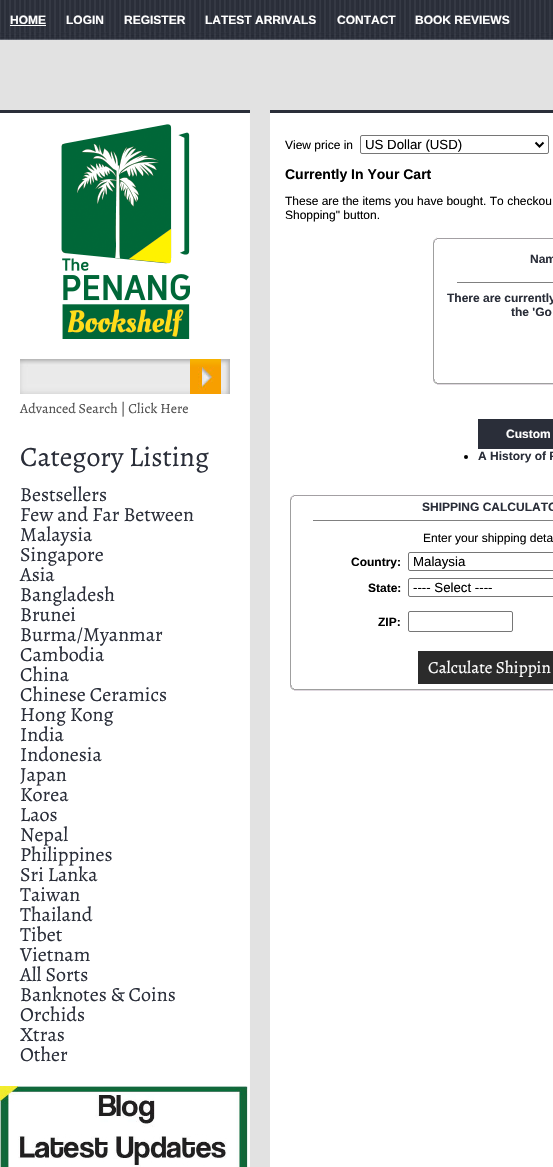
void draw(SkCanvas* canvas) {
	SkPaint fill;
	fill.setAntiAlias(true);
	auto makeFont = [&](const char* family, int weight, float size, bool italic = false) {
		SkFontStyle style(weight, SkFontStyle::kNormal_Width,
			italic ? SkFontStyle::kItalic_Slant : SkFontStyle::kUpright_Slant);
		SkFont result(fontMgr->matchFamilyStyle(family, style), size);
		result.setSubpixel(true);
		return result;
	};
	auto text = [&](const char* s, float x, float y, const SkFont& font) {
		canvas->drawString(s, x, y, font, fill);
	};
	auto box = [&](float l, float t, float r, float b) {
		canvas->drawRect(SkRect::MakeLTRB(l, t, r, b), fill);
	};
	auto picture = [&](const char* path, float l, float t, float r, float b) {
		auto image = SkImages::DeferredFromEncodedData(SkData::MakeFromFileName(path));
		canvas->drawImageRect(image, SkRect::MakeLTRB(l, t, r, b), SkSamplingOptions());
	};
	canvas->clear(0xFFE2E2E2);
	picture("image0.png", 0, 0, 553, 40);
	fill.setColor(0xFFFFFFFF);
	box(10, 25, 46, 26);
	picture("image1.png", 0, 113, 553, 1167);
	fill.setColor(0xFF2A2E39);
	box(0, 110, 250, 113);
	picture("image2.png", 61, 124, 190, 339);
	picture("image3.png", 20, 359, 230, 394);
	picture("image4.png", 190, 359, 221, 394);
	picture("image5.png", 0, 1086, 248, 1167);
	box(270, 110, 553, 113);
	fill.setStyle(SkPaint::kStroke_Style);
	fill.setStrokeWidth(1);
	fill.setColor(0xFF767676);
	canvas->drawRoundRect(SkRect::MakeLTRB(360.5f, 135.5f, 548.5f, 153.5f), 1.5f, 1.5f, fill);
	fill.setStrokeWidth(2);
	fill.setColor(0xFF000000);
	canvas->drawPath(SkPathBuilder().moveTo(535.5f, 142.5f).lineTo(539.5f, 146.5f).lineTo(543.5f, 142.5f).detach(), fill);
	picture("image6.png", 433, 237, 437, 243);
	picture("image7.png", 437, 238, 553, 239);
	fill.setStyle(SkPaint::kFill_Style);
	fill.setColor(0xFF9F9F9F);
	box(433, 243, 434, 379);
	fill.setColor(0xFF808080);
	box(457, 282, 553, 283);
	picture("image8.png", 433, 379, 437, 384);
	picture("image9.png", 437, 383, 553, 385);
	fill.setColor(0xFF2A2E39);
	box(478, 419, 553, 449);
	fill.setColor(0xFF000000);
	canvas->drawCircle(466, 457, 2, fill);
	picture("image6.png", 290, 494, 294, 500);
	picture("image10.png", 294, 495, 553, 496);
	fill.setColor(0xFF9F9F9F);
	box(290, 500, 291, 685);
	fill.setColor(0xFF808080);
	box(313, 520, 553, 521);
	fill.setStyle(SkPaint::kStroke_Style);
	fill.setStrokeWidth(1);
	fill.setColor(0xFF767676);
	canvas->drawRoundRect(SkRect::MakeLTRB(408.5f, 552.5f, 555.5f, 570.5f), 1.5f, 1.5f, fill);
	canvas->drawRoundRect(SkRect::MakeLTRB(408.5f, 578.5f, 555.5f, 596.5f), 1.5f, 1.5f, fill);
	canvas->drawRoundRect(SkRect::MakeLTRB(408.5f, 611.5f, 512.5f, 631.5f), 1.5f, 1.5f, fill);
	fill.setStyle(SkPaint::kFill_Style);
	fill.setColor(0xFF2B2B2B);
	box(418, 651, 553, 684);
	picture("image8.png", 290, 685, 294, 690);
	picture("image11.png", 294, 689, 553, 691);
	auto font1 = makeFont("Liberation Sans", 700, 12);
	fill.setColor(0xFFFFFFFF);
	text("HOME", 10, 24, font1);
	text("LOGIN", 66, 24, font1);
	text("REGISTER", 124, 24, font1);
	text("LATEST ARRIVALS", 205, 24, font1);
	text("CONTACT", 337, 24, font1);
	text("BOOK REVIEWS", 415, 24, font1);
	auto font2 = makeFont("Alegreya", 400, 14);
	fill.setColor(0xFF505050);
	text("Advanced Search | Click Here", 20, 413, font2);
	auto font3 = makeFont("Alegreya", 400, 28);
	fill.setColor(0xFF2A2E39);
	text("Category Listing", 20, 466, font3);
	auto font4 = makeFont("Alegreya", 400, 20);
	text("Bestsellers", 20, 501, font4);
	text("Few and Far Between", 20, 521, font4);
	text("Malaysia", 20, 541, font4);
	text("Singapore", 20, 561, font4);
	text("Asia", 20, 581, font4);
	text("Bangladesh", 20, 601, font4);
	text("Brunei", 20, 621, font4);
	text("Burma/Myanmar", 20, 641, font4);
	text("Cambodia", 20, 661, font4);
	text("China", 20, 681, font4);
	text("Chinese Ceramics", 20, 701, font4);
	text("Hong Kong", 20, 721, font4);
	text("India", 20, 741, font4);
	text("Indonesia", 20, 761, font4);
	text("Japan", 20, 781, font4);
	text("Korea", 20, 801, font4);
	text("Laos", 20, 821, font4);
	text("Nepal", 20, 841, font4);
	text("Philippines", 20, 861, font4);
	text("Sri Lanka", 20, 881, font4);
	text("Taiwan", 20, 901, font4);
	text("Thailand", 20, 921, font4);
	text("Tibet", 20, 941, font4);
	text("Vietnam", 20, 961, font4);
	text("All Sorts", 20, 981, font4);
	text("Banknotes & Coins", 20, 1001, font4);
	text("Orchids", 20, 1021, font4);
	text("Xtras", 20, 1041, font4);
	text("Other", 20, 1061, font4);
	auto font5 = makeFont("Liberation Sans", 400, 12);
	fill.setColor(0xFF000000);
	text("View price in", 285, 149, font5);
	auto font6 = makeFont("Liberation Sans", 400, 13.25f);
	text("US Dollar (USD)", 365, 149, font6);
	auto font7 = makeFont("Liberation Sans", 700, 14);
	text("Currently In Your Cart", 285, 179, font7);
	text("These are the items you have bought. To checkou", 285, 205, font5);
	text("Shopping\" button.", 285, 219, font5);
	fill.setColor(0xFF2A2E39);
	text("Nam", 530, 263, font1);
	text("There are currently", 447, 302, font1);
	text("the 'Go", 511, 316, font1);
	fill.setColor(0xFFFFFFFF);
	text("Custom", 506, 438, font1);
	fill.setColor(0xFF2A2E39);
	text("A History of P", 478, 460, font1);
	text("SHIPPING CALCULATO", 422, 511, font1);
	fill.setColor(0xFF000000);
	text("Enter your shipping deta", 423, 542, font5);
	text("Country:", 351, 566, font1);
	text("Malaysia", 413, 566, font6);
	text("State:", 368, 592, font1);
	text("---- Select ----", 413, 592, font6);
	text("ZIP:", 378, 626, font1);
	auto font8 = makeFont("Alegreya", 400, 17);
	fill.setColor(0xFFFFFFFF);
	text("Calculate Shippin", 428, 673, font8);
}
